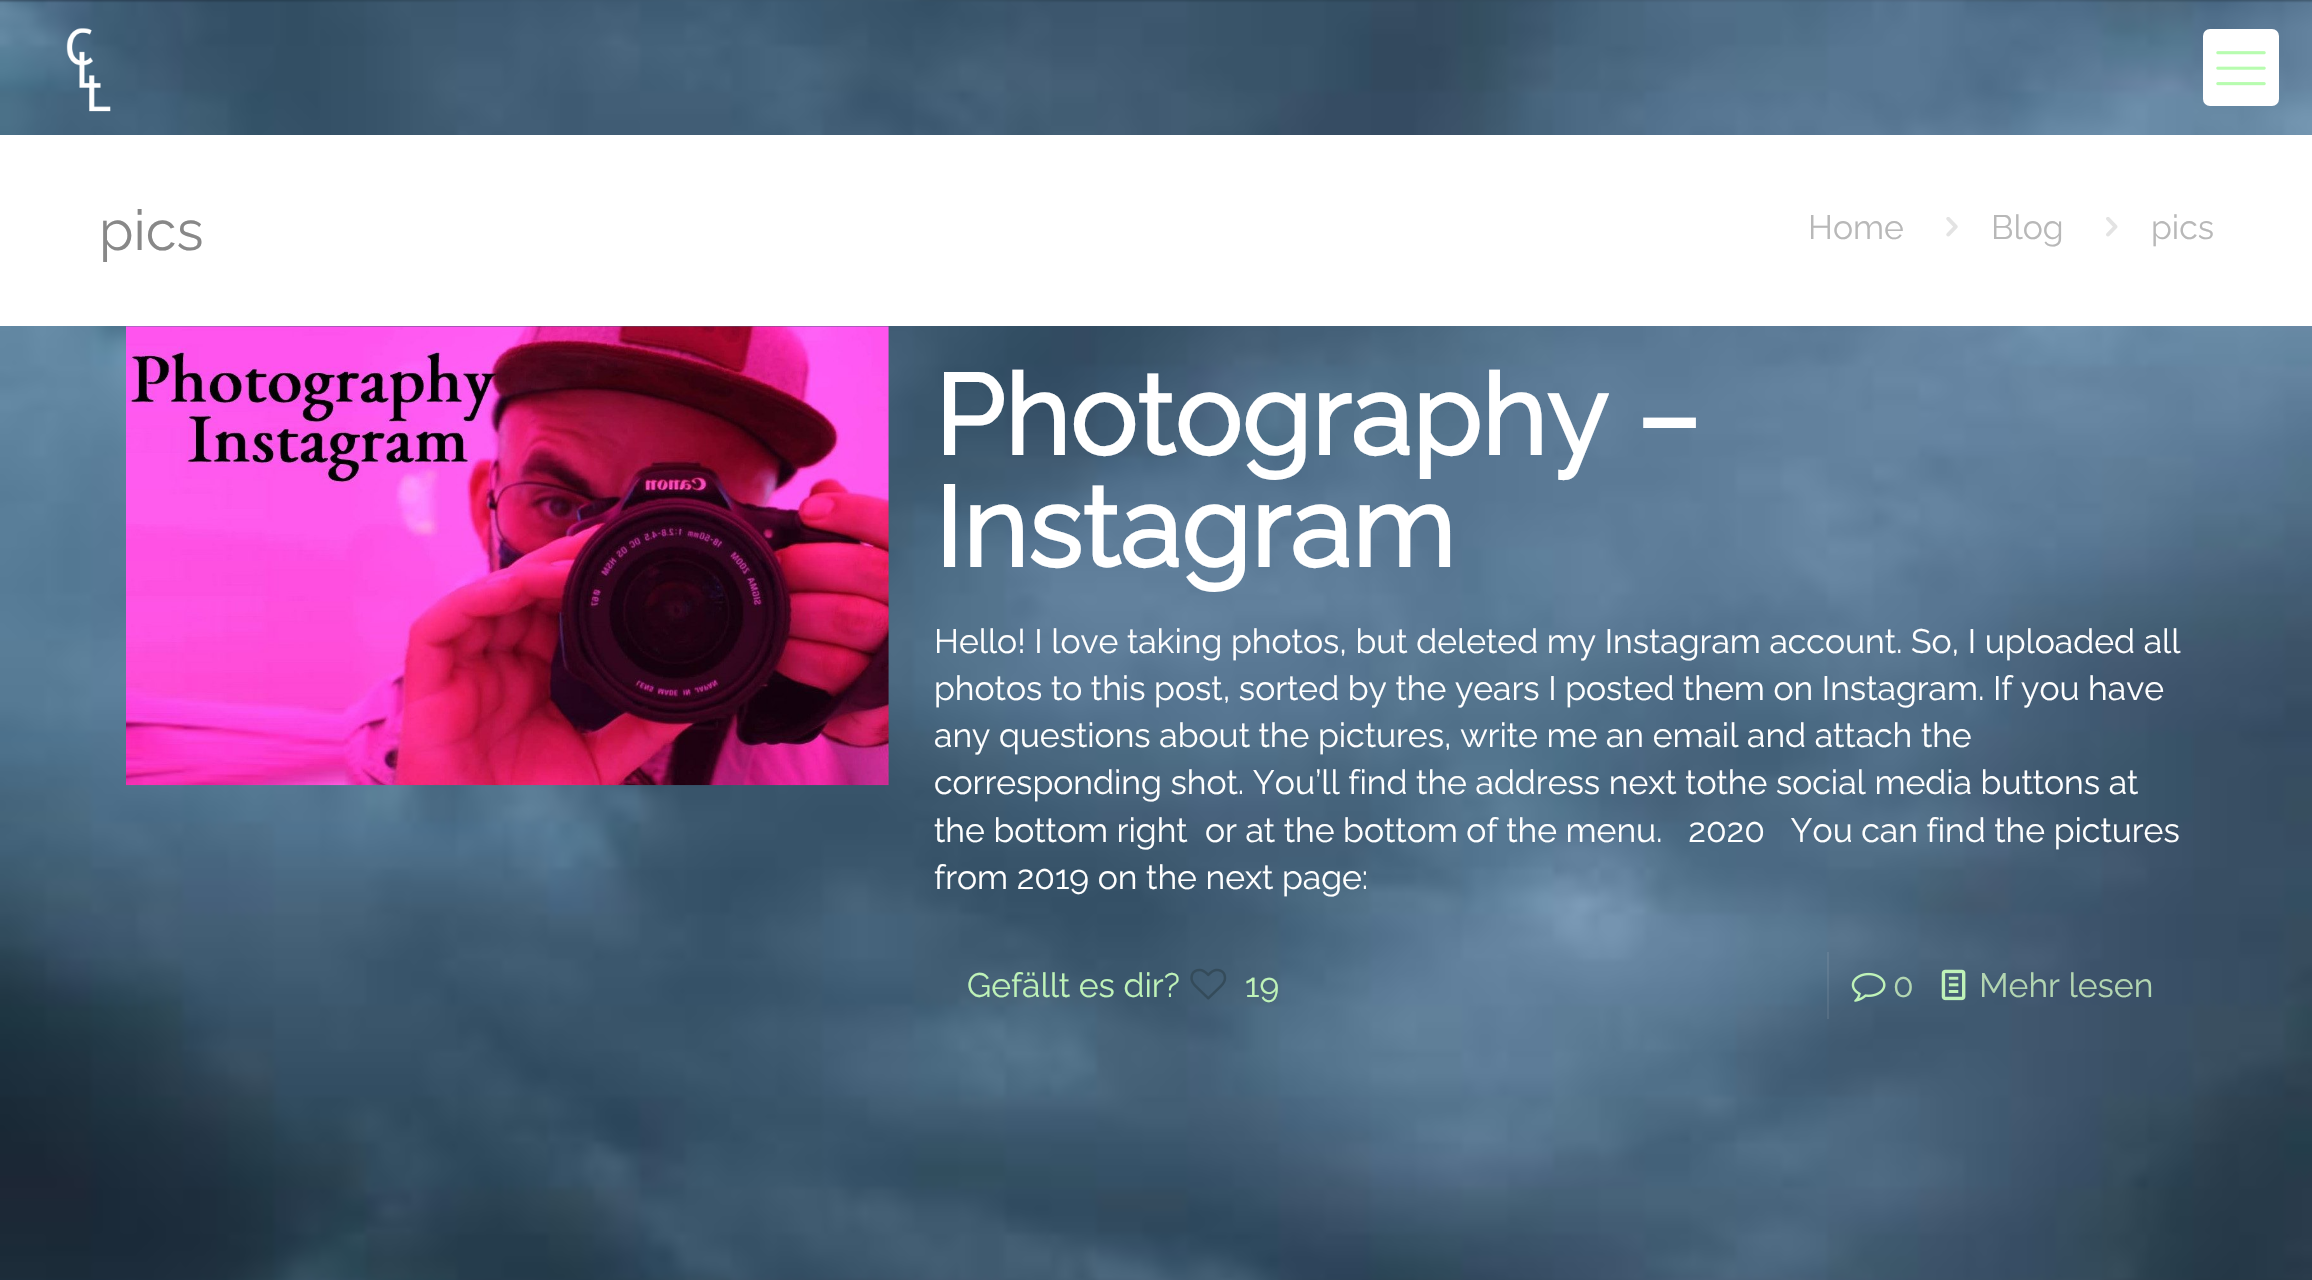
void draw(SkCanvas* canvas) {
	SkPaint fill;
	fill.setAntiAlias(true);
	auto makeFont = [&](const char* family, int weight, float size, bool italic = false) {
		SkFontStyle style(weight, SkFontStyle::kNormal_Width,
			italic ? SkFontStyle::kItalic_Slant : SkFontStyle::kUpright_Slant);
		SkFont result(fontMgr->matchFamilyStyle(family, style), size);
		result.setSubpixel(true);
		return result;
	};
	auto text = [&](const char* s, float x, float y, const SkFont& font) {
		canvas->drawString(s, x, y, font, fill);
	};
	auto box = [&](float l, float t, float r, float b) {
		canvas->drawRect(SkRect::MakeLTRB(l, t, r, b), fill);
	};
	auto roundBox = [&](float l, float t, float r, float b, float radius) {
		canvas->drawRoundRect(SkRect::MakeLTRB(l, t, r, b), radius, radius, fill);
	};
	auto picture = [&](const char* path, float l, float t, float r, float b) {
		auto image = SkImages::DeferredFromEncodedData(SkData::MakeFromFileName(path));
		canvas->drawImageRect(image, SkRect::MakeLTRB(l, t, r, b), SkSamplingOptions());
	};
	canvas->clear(0xFFFFFFFF);
	picture("image0.png", 0, 0, 2312, 1280);
	picture("image1.png", 66, 28, 111, 112);
	fill.setColor(0xFFFFFFFF);
	roundBox(2203, 29, 2279, 106, 7);
	picture("image2.png", 2216, 51, 2266, 86);
	box(0, 135, 2312, 326);
	picture("image3.png", 1946, 217, 1958, 237);
	picture("image4.png", 2106, 217, 2118, 237);
	picture("image5.png", 126, 326, 889, 786);
	picture("image6.png", 1190, 968, 1227, 1000);
	fill.setColor(0x14FFFFFF);
	box(1827, 952, 1829, 1019);
	picture("image7.png", 1851, 972, 1886, 1002);
	picture("image8.png", 1941, 969, 1966, 1001);
	auto font1 = makeFont("Raleway", 100, 56);
	fill.setColor(0xFF888888);
	text("pics", 99, 250, font1);
	auto font2 = makeFont("Raleway", 100, 33.75f);
	fill.setColor(0xFFB8B8B8);
	text("Home", 1808, 239, font2);
	text("Blog", 1991, 239, font2);
	text("pics", 2151, 239, font2);
	auto font3 = makeFont("Raleway", 700, 112.5f);
	fill.setColor(0xFFFFFFFF);
	text("Photography –", 934, 455, font3);
	text("Instagram", 934, 567, font3);
	text("Hello! I love taking photos, but deleted my Instagram account. So, I uploaded all", 934, 653, font2);
	text("photos to this post, sorted by the years I posted them on Instagram. If you have", 934, 700, font2);
	text("any questions about the pictures, write me an email and attach the", 934, 747, font2);
	text("corresponding shot. You’ll find the address next tothe social media buttons at", 934, 794, font2);
	text("the bottom right  or at the bottom of the menu.   2020   You can find the pictures", 934, 842, font2);
	text("from 2019 on the next page:", 934, 889, font2);
	fill.setColor(0xFFBFF3B8);
	text("Gefällt es dir?", 967, 997, font2);
	text("19", 1245, 997, font2);
	fill.setColor(0xFFB3D6B2);
	text("0", 1893, 997, font2);
	text("Mehr lesen", 1979, 997, font2);
}
